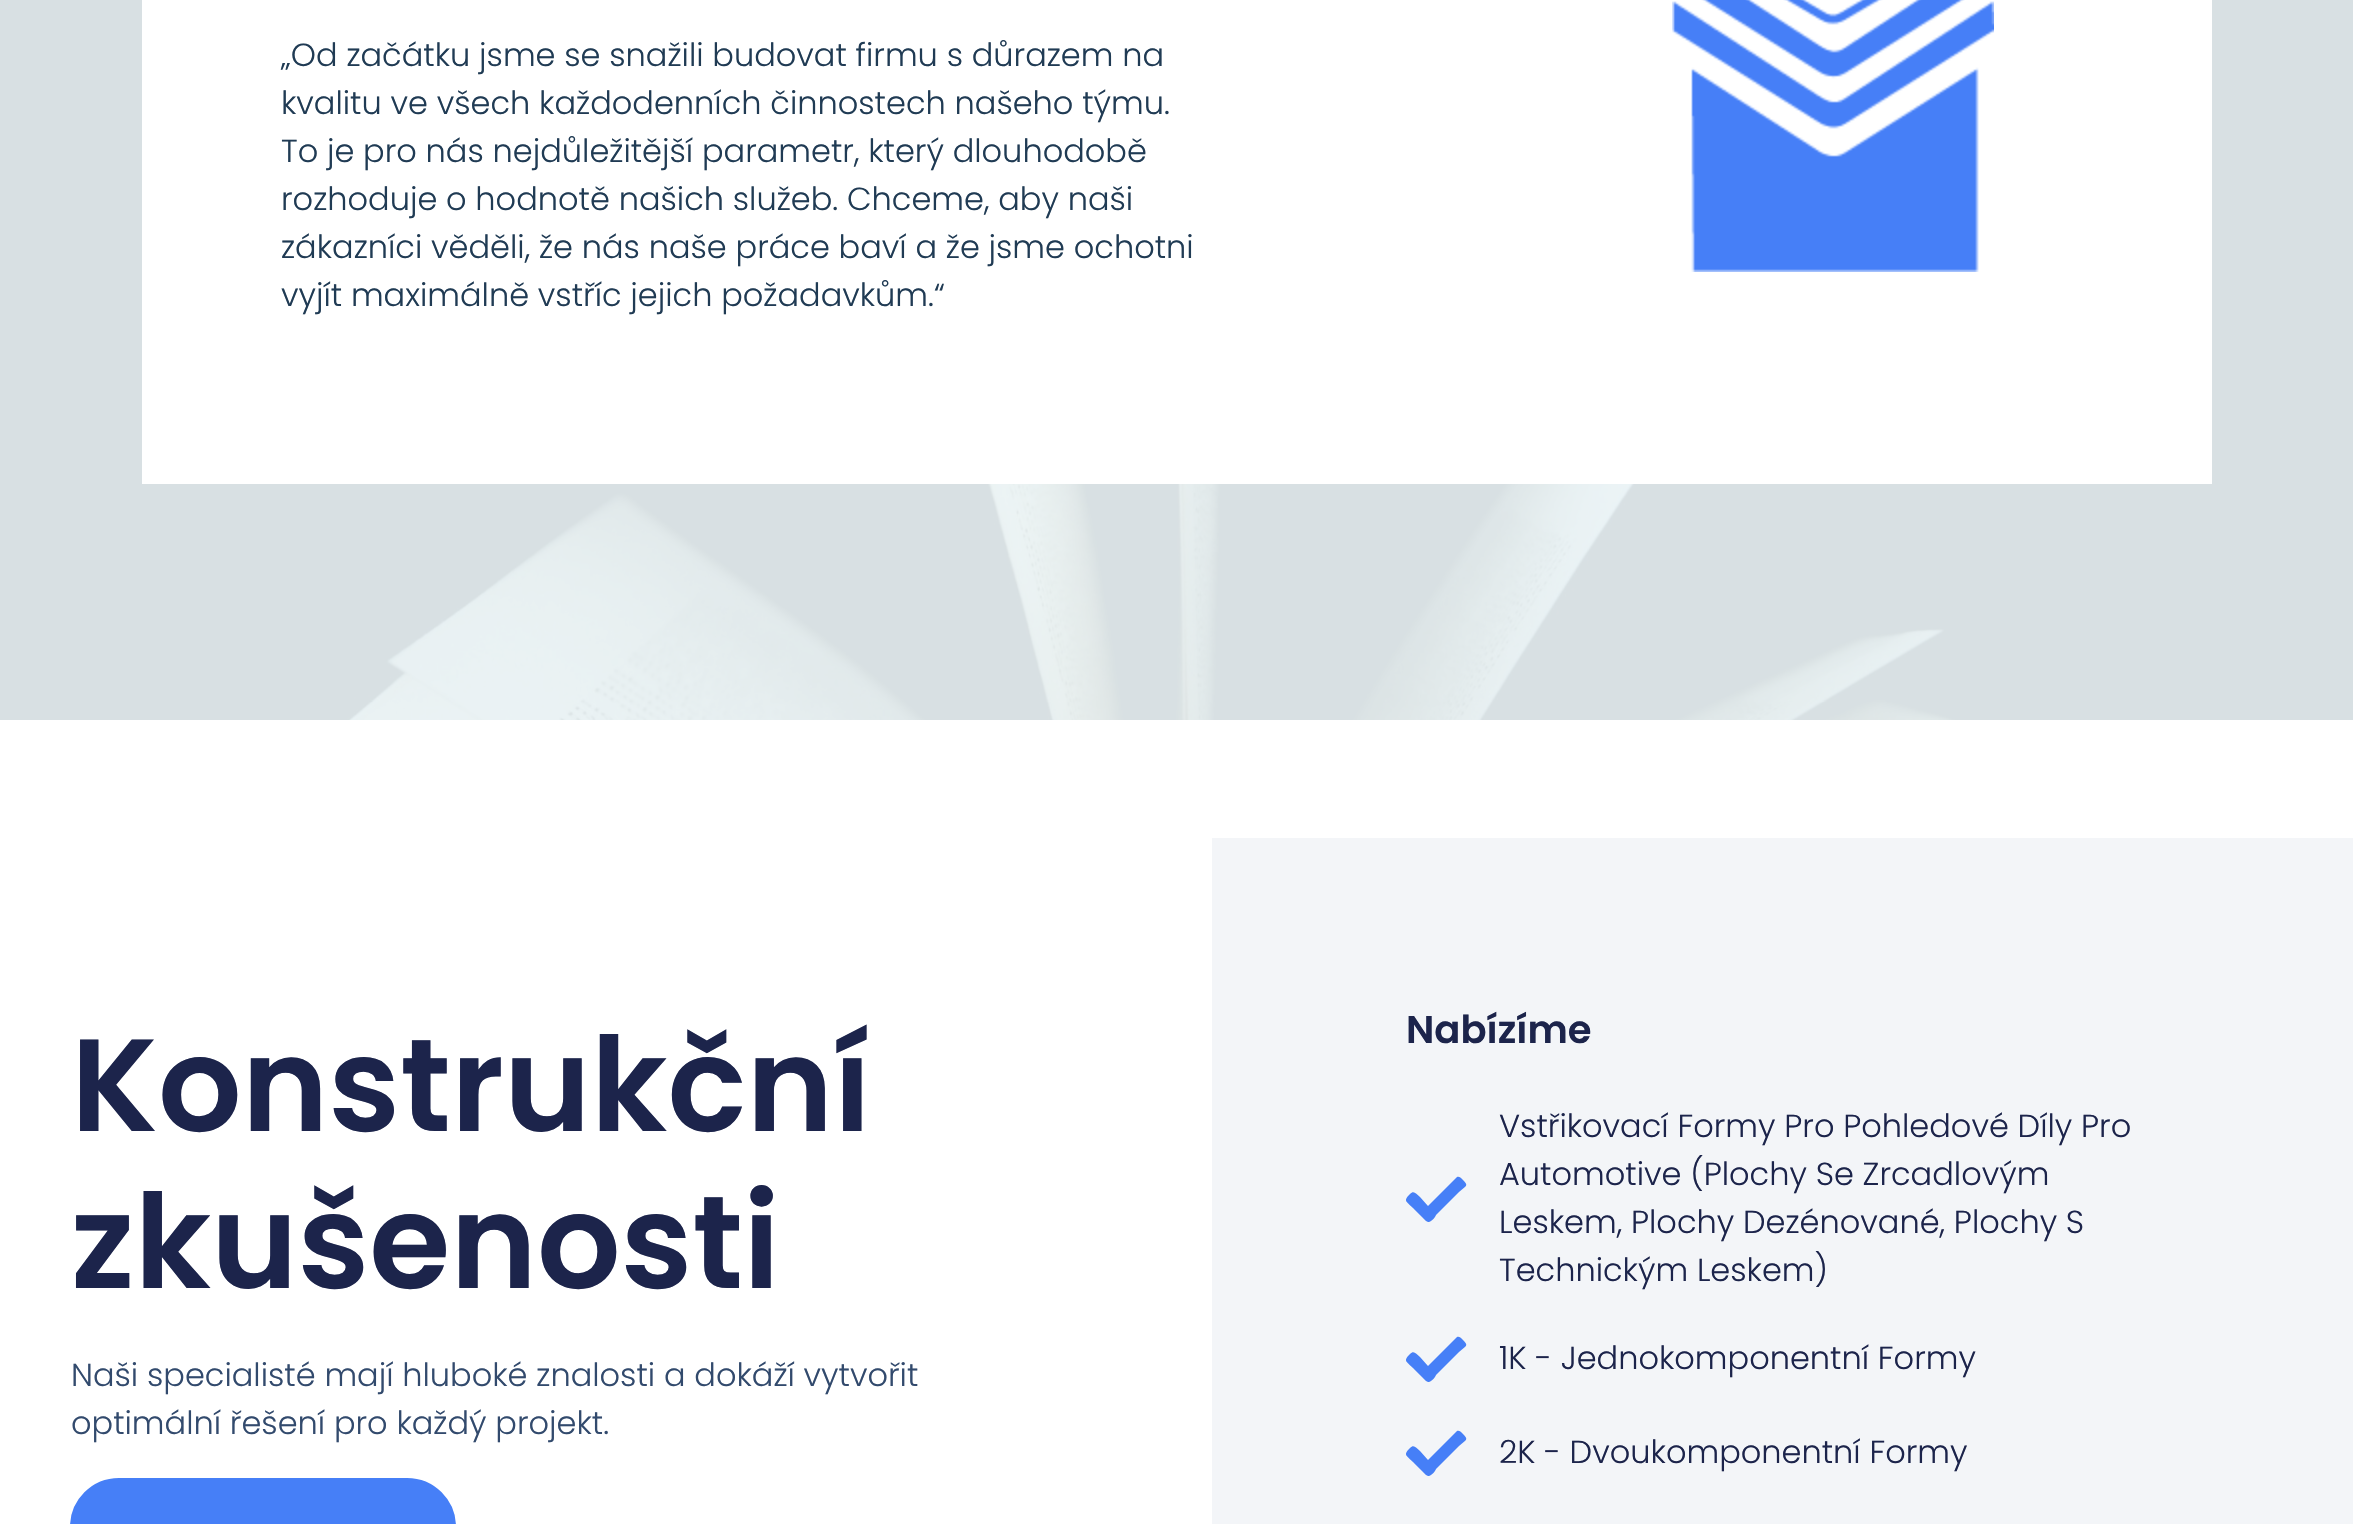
void draw(SkCanvas* canvas) {
	SkPaint fill;
	fill.setAntiAlias(true);
	auto makeFont = [&](const char* family, int weight, float size, bool italic = false) {
		SkFontStyle style(weight, SkFontStyle::kNormal_Width,
			italic ? SkFontStyle::kItalic_Slant : SkFontStyle::kUpright_Slant);
		SkFont result(fontMgr->matchFamilyStyle(family, style), size);
		result.setSubpixel(true);
		return result;
	};
	auto text = [&](const char* s, float x, float y, const SkFont& font) {
		canvas->drawString(s, x, y, font, fill);
	};
	auto box = [&](float l, float t, float r, float b) {
		canvas->drawRect(SkRect::MakeLTRB(l, t, r, b), fill);
	};
	auto picture = [&](const char* path, float l, float t, float r, float b) {
		auto image = SkImages::DeferredFromEncodedData(SkData::MakeFromFileName(path));
		canvas->drawImageRect(image, SkRect::MakeLTRB(l, t, r, b), SkSamplingOptions());
	};
	canvas->clear(0xFFFFFFFF);
	picture("image0.png", 0, 0, 2353, 720);
	fill.setColor(0xFFFFFFFF);
	box(142, 0, 2212, 484);
	picture("image1.png", 1672, 0, 1994, 272);
	fill.setColor(0xFF467FF7);
	canvas->drawRoundRect(SkRect::MakeLTRB(71, 1479, 455, 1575), 49, 49, fill);
	fill.setStyle(SkPaint::kStroke_Style);
	fill.setStrokeWidth(2);
	canvas->drawRoundRect(SkRect::MakeLTRB(71, 1479, 455, 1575), 49, 49, fill);
	fill.setStyle(SkPaint::kFill_Style);
	fill.setColor(0xFFF3F5F8);
	box(1212, 838, 2353, 1524);
	fill.setColor(0xFF467FF7);
	canvas->drawPath(SkPathBuilder().moveTo(1426, 1221).lineTo(1413, 1208).cubicTo(1406, 1201, 1403, 1201, 1410, 1194).cubicTo(1414, 1190, 1416, 1194, 1420, 1197).lineTo(1428, 1206).lineTo(1457, 1177).cubicTo(1459, 1176, 1461, 1178, 1462, 1179).cubicTo(1469, 1186, 1467, 1185, 1459, 1192).lineTo(1436, 1215).cubicTo(1436, 1216, 1431, 1223, 1428, 1222).close().detach(), fill);
	canvas->drawPath(SkPathBuilder().moveTo(1426, 1381).lineTo(1413, 1368).cubicTo(1406, 1361, 1403, 1361, 1410, 1354).cubicTo(1414, 1350, 1416, 1354, 1420, 1357).lineTo(1428, 1366).lineTo(1457, 1337).cubicTo(1459, 1336, 1461, 1338, 1462, 1339).cubicTo(1469, 1346, 1467, 1345, 1459, 1352).lineTo(1436, 1375).cubicTo(1436, 1376, 1431, 1383, 1428, 1382).close().detach(), fill);
	canvas->drawPath(SkPathBuilder().moveTo(1426, 1475).lineTo(1413, 1462).cubicTo(1406, 1455, 1403, 1455, 1410, 1448).cubicTo(1414, 1444, 1416, 1448, 1420, 1451).lineTo(1428, 1460).lineTo(1457, 1431).cubicTo(1459, 1430, 1461, 1432, 1462, 1433).cubicTo(1469, 1440, 1467, 1439, 1459, 1446).lineTo(1436, 1469).cubicTo(1436, 1470, 1431, 1477, 1428, 1476).close().detach(), fill);
	auto font1 = makeFont("Poppins", 300, 32);
	fill.setColor(0xFF203B54);
	text("„Od začátku jsme se snažili budovat firmu s důrazem na", 281, 66, font1);
	text("kvalitu ve všech každodenních činnostech našeho týmu.", 281, 114, font1);
	text("To je pro nás nejdůležitější parametr, který dlouhodobě", 281, 162, font1);
	text("rozhoduje o hodnotě našich služeb. Chceme, aby naši", 281, 210, font1);
	text("zákazníci věděli, že nás naše práce baví a že jsme ochotni", 281, 258, font1);
	text("vyjít maximálně vstříc jejich požadavkům.“", 281, 306, font1);
	auto font2 = makeFont("Poppins", 600, 131.25f);
	fill.setColor(0xFF1C244B);
	text("Konstrukční", 71, 1131, font2);
	text("zkušenosti", 71, 1288, font2);
	fill.setColor(0xFF324A6D);
	text("Naši specialisté mají hluboké znalosti a dokáží vytvořit", 71, 1386, font1);
	text("optimální řešení pro každý projekt.", 71, 1434, font1);
	auto font3 = makeFont("Poppins", 600, 38.5f);
	fill.setColor(0xFF1C244B);
	text("Nabízíme", 1406, 1043, font3);
	text("Vstřikovací Formy Pro Pohledové Díly Pro", 1499, 1137, font1);
	text("Automotive (Plochy Se Zrcadlovým", 1499, 1185, font1);
	text("Leskem, Plochy Dezénované, Plochy S", 1499, 1233, font1);
	text("Technickým Leskem)", 1499, 1281, font1);
	text("1K - Jednokomponentní Formy", 1499, 1369, font1);
	text("2K - Dvoukomponentní Formy", 1499, 1463, font1);
}
